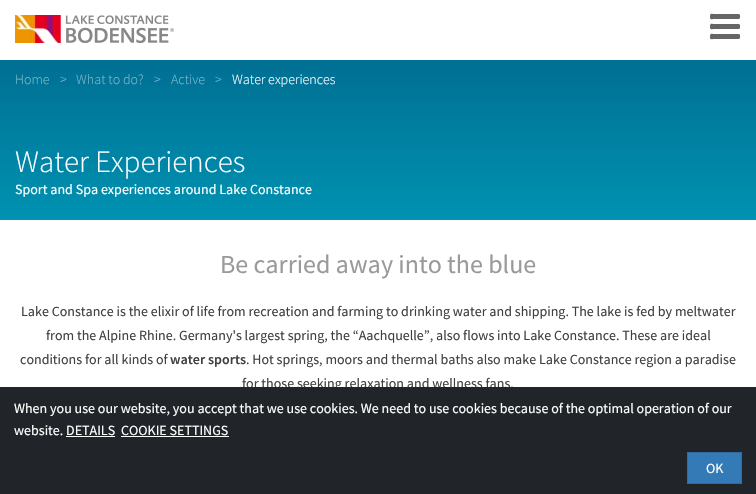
void draw(SkCanvas* canvas) {
	SkPaint fill;
	fill.setAntiAlias(true);
	auto makeFont = [&](const char* family, int weight, float size, bool italic = false) {
		SkFontStyle style(weight, SkFontStyle::kNormal_Width,
			italic ? SkFontStyle::kItalic_Slant : SkFontStyle::kUpright_Slant);
		SkFont result(fontMgr->matchFamilyStyle(family, style), size);
		result.setSubpixel(true);
		return result;
	};
	auto text = [&](const char* s, float x, float y, const SkFont& font) {
		canvas->drawString(s, x, y, font, fill);
	};
	auto box = [&](float l, float t, float r, float b) {
		canvas->drawRect(SkRect::MakeLTRB(l, t, r, b), fill);
	};
	auto picture = [&](const char* path, float l, float t, float r, float b) {
		auto image = SkImages::DeferredFromEncodedData(SkData::MakeFromFileName(path));
		canvas->drawImageRect(image, SkRect::MakeLTRB(l, t, r, b), SkSamplingOptions());
	};
	canvas->clear(0xFFFFFFFF);
	picture("image0.png", 15, 15, 174, 43);
	fill.setColor(0xFF666666);
	canvas->drawPath(SkPathBuilder().moveTo(739, 39).lineTo(715.5f, 39).cubicTo(710.5f, 39, 710, 40.5f, 710, 36).cubicTo(710, 32.5f, 712.5f, 34, 715.5f, 34).lineTo(739, 34).cubicTo(740.5f, 34, 740.5f, 39, 739, 39).close().moveTo(739, 29).lineTo(715.5f, 29).cubicTo(710.5f, 29, 710, 30.5f, 710, 26).cubicTo(710, 22.5f, 712.5f, 24, 715.5f, 24).lineTo(739, 24).cubicTo(740.5f, 24, 740.5f, 29, 739, 29).close().moveTo(739, 19).lineTo(715.5f, 19).cubicTo(710.5f, 19, 710, 20.5f, 710, 16).cubicTo(710, 12.5f, 712.5f, 14, 715.5f, 14).lineTo(739, 14).cubicTo(740.5f, 14, 740.5f, 19, 739, 19).close().detach(), fill);
	{
		const SkColor colors[] = {0xFF006F93, 0xFF0092B1};
		const float stops[] = {0, 1};
		const SkPoint ends[] = {{378, 60}, {378, 220}};
		fill.setShader(SkGradientShader::MakeLinear(ends, colors, stops, 2, SkTileMode::kClamp));
		fill.setAlpha(255);
	}
	box(0, 60, 756, 220);
	auto font1 = makeFont("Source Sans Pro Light", 300, 14);
	fill.setShader(nullptr);
	fill.setColor(0xFF80B9CB);
	text("Home", 15, 84, font1);
	text(">", 60, 84, font1);
	text("What to do?", 76, 84, font1);
	text(">", 154, 84, font1);
	text("Active", 171, 84, font1);
	text(">", 215, 84, font1);
	fill.setColor(0xFFFFFFFF);
	text("Water experiences", 232, 84, font1);
	auto font2 = makeFont("Source Sans Pro Light", 300, 31);
	text("Water Experiences", 15, 172, font2);
	auto font3 = makeFont("Source Sans Pro", 400, 14);
	text("Sport and Spa experiences around Lake Constance", 15, 194, font3);
	auto font4 = makeFont("Source Sans Pro", 400, 26);
	fill.setColor(0xFF9A9A9A);
	text("Be carried away into the blue", 220, 273, font4);
	fill.setColor(0xFF404040);
	text("Lake Constance is the elixir of life from recreation and farming to drinking water and shipping. The lake is fed by meltwater", 21, 316, font3);
	text("from the Alpine Rhine. Germany's largest spring, the “Aachquelle”, also flows into Lake Constance. These are ideal", 46, 340, font3);
	text("conditions for all kinds of", 20, 364, font3);
	auto font5 = makeFont("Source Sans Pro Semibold", 600, 14);
	text("water sports", 170, 364, font5);
	text(". Hot springs, moors and thermal baths also make Lake Constance region a paradise", 246, 364, font3);
	text("for those seeking relaxation and wellness fans.", 242, 388, font3);
	fill.setColor(0xFF212529);
	box(0, 387, 756, 494);
	fill.setColor(0xFFFFFFFF);
	text("When you use our website, you accept that we use cookies. We need to use cookies because of the optimal operation of our", 14, 413, font3);
	text("website. DETAILS", 14, 435, font3);
	text("COOKIE SETTINGS", 121, 435, font3);
	box(121, 436, 229, 437);
	box(66, 436, 115, 437);
	fill.setColor(0xFF337AB7);
	canvas->drawRect(SkRect::MakeLTRB(687.5f, 452.5f, 741.5f, 483.5f), fill);
	fill.setStyle(SkPaint::kStroke_Style);
	fill.setStrokeWidth(1);
	fill.setColor(0xFF2E6DA4);
	canvas->drawRect(SkRect::MakeLTRB(687.5f, 452.5f, 741.5f, 483.5f), fill);
	fill.setStyle(SkPaint::kFill_Style);
	fill.setColor(0xFFFFFFFF);
	text("OK", 706, 473, font3);
}
